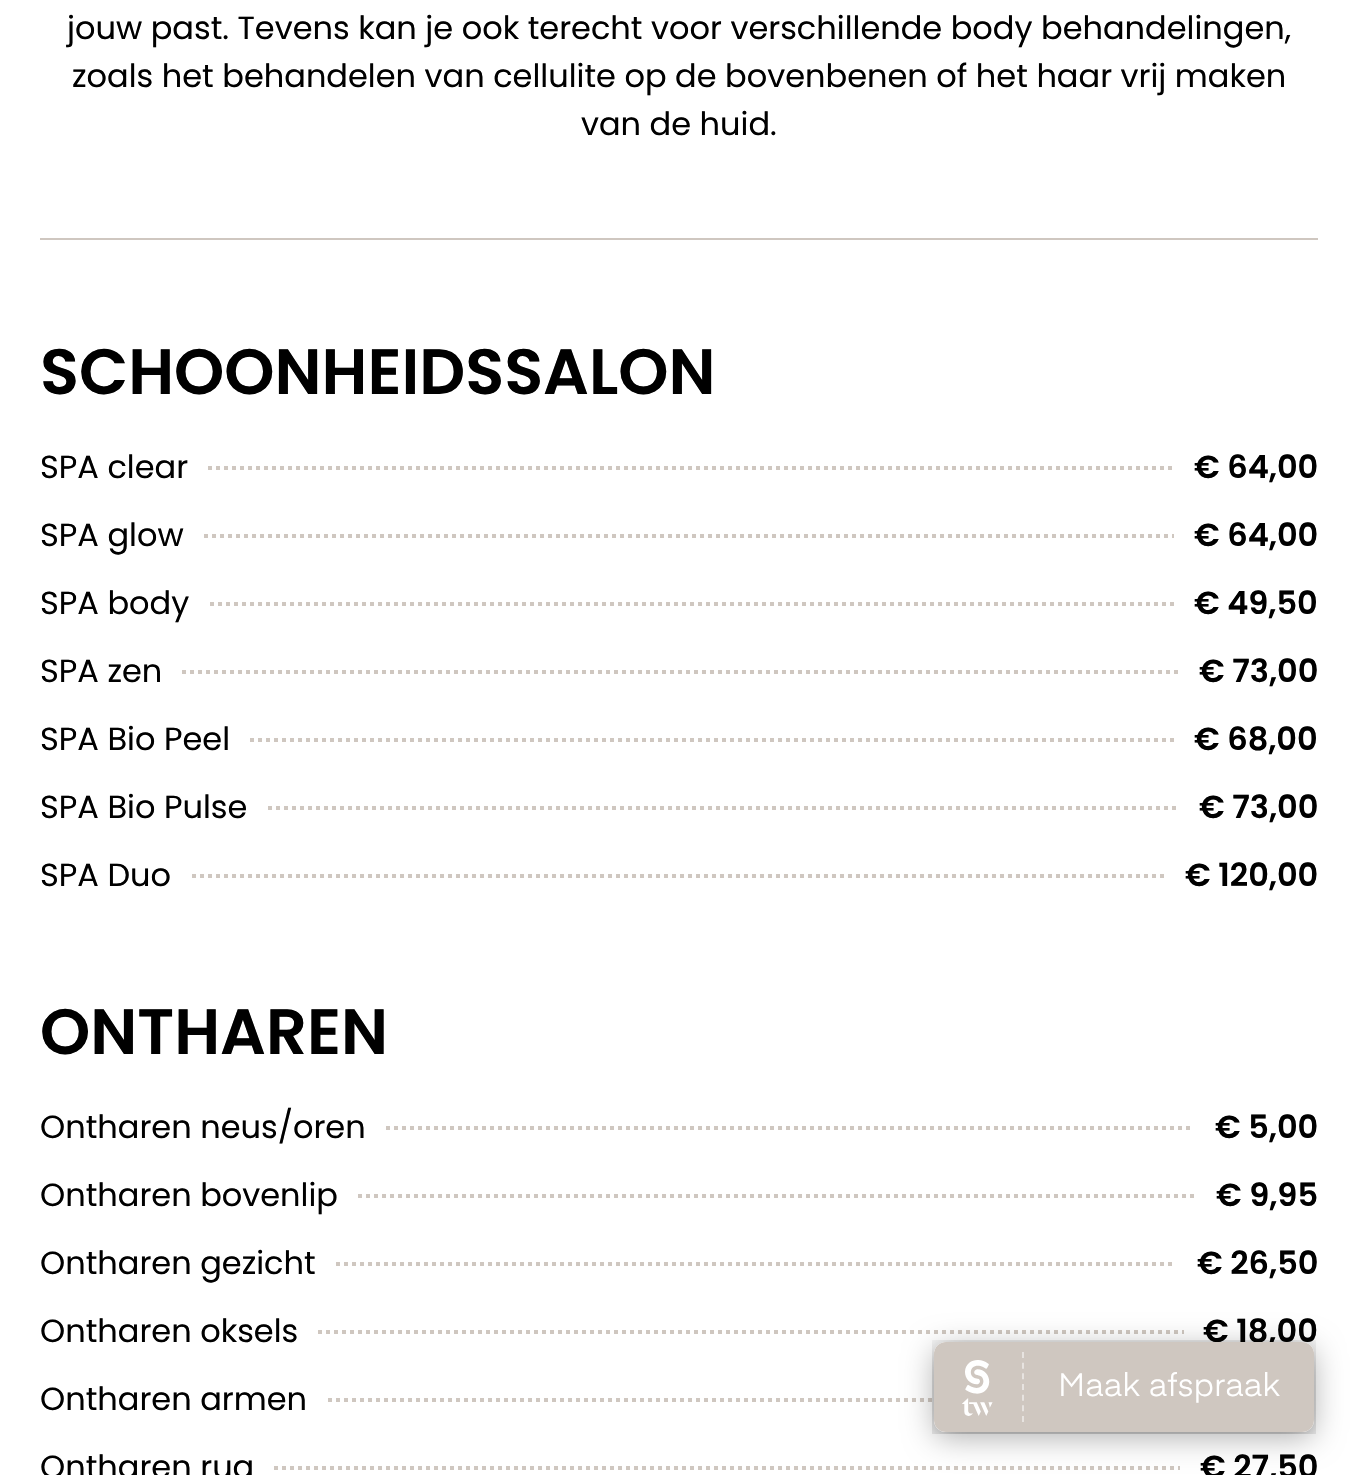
void draw(SkCanvas* canvas) {
	SkPaint fill;
	fill.setAntiAlias(true);
	auto makeFont = [&](const char* family, int weight, float size, bool italic = false) {
		SkFontStyle style(weight, SkFontStyle::kNormal_Width,
			italic ? SkFontStyle::kItalic_Slant : SkFontStyle::kUpright_Slant);
		SkFont result(fontMgr->matchFamilyStyle(family, style), size);
		result.setSubpixel(true);
		return result;
	};
	auto text = [&](const char* s, float x, float y, const SkFont& font) {
		canvas->drawString(s, x, y, font, fill);
	};
	auto box = [&](float l, float t, float r, float b) {
		canvas->drawRect(SkRect::MakeLTRB(l, t, r, b), fill);
	};
	auto picture = [&](const char* path, float l, float t, float r, float b) {
		auto image = SkImages::DeferredFromEncodedData(SkData::MakeFromFileName(path));
		canvas->drawImageRect(image, SkRect::MakeLTRB(l, t, r, b), SkSamplingOptions());
	};
	canvas->clear(0xFFFFFFFF);
	fill.setColor(0xFFCFC7C0);
	box(40, 238, 1318, 240);
	fill.setStyle(SkPaint::kStroke_Style);
	fill.setStrokeWidth(4);
	fill.setPathEffect(SkDashPathEffect::Make({{4, 4}}, 0));
	canvas->drawPath(SkPathBuilder().moveTo(208, 468).lineTo(1174, 468).detach(), fill);
	fill.setPathEffect(nullptr);
	fill.setPathEffect(SkDashPathEffect::Make({{4, 4}}, 0));
	canvas->drawPath(SkPathBuilder().moveTo(204, 536).lineTo(1174, 536).detach(), fill);
	fill.setPathEffect(nullptr);
	fill.setPathEffect(SkDashPathEffect::Make({{4, 4}}, 0));
	canvas->drawPath(SkPathBuilder().moveTo(210, 604).lineTo(1174, 604).detach(), fill);
	fill.setPathEffect(nullptr);
	fill.setPathEffect(SkDashPathEffect::Make({{4, 4}}, 0));
	canvas->drawPath(SkPathBuilder().moveTo(182, 672).lineTo(1178, 672).detach(), fill);
	fill.setPathEffect(nullptr);
	fill.setPathEffect(SkDashPathEffect::Make({{4, 4}}, 0));
	canvas->drawPath(SkPathBuilder().moveTo(250, 740).lineTo(1174, 740).detach(), fill);
	fill.setPathEffect(nullptr);
	fill.setPathEffect(SkDashPathEffect::Make({{4, 4}}, 0));
	canvas->drawPath(SkPathBuilder().moveTo(268, 808).lineTo(1178, 808).detach(), fill);
	fill.setPathEffect(nullptr);
	fill.setPathEffect(SkDashPathEffect::Make({{4, 4}}, 0));
	canvas->drawPath(SkPathBuilder().moveTo(192, 876).lineTo(1164, 876).detach(), fill);
	fill.setPathEffect(nullptr);
	fill.setPathEffect(SkDashPathEffect::Make({{4, 4}}, 0));
	canvas->drawPath(SkPathBuilder().moveTo(386, 1128).lineTo(1194, 1128).detach(), fill);
	fill.setPathEffect(nullptr);
	fill.setPathEffect(SkDashPathEffect::Make({{4, 4}}, 0));
	canvas->drawPath(SkPathBuilder().moveTo(358, 1196).lineTo(1196, 1196).detach(), fill);
	fill.setPathEffect(nullptr);
	fill.setPathEffect(SkDashPathEffect::Make({{4, 4}}, 0));
	canvas->drawPath(SkPathBuilder().moveTo(336, 1264).lineTo(1176, 1264).detach(), fill);
	fill.setPathEffect(nullptr);
	fill.setPathEffect(SkDashPathEffect::Make({{4, 4}}, 0));
	canvas->drawPath(SkPathBuilder().moveTo(318, 1332).lineTo(1184, 1332).detach(), fill);
	fill.setPathEffect(nullptr);
	fill.setPathEffect(SkDashPathEffect::Make({{4, 4}}, 0));
	canvas->drawPath(SkPathBuilder().moveTo(328, 1400).lineTo(1184, 1400).detach(), fill);
	fill.setPathEffect(nullptr);
	fill.setPathEffect(SkDashPathEffect::Make({{4, 4}}, 0));
	canvas->drawPath(SkPathBuilder().moveTo(274, 1468).lineTo(1180, 1468).detach(), fill);
	fill.setPathEffect(nullptr);
	fill.setStyle(SkPaint::kFill_Style);
	fill.setColor(0x4D000000);
	fill.setMaskFilter(SkMaskFilter::MakeBlur(kNormal_SkBlurStyle, 15));
	canvas->drawRoundRect(SkRect::MakeLTRB(934, 1348, 1314, 1438), 12, 12, fill);
	fill.setMaskFilter(nullptr);
	auto font1 = makeFont("Poppins", 400, 32);
	fill.setColor(0xFF000000);
	text("jouw past. Tevens kan je ook terecht voor verschillende body behandelingen,", 67, 39, font1);
	text("zoals het behandelen van cellulite op de bovenbenen of het haar vrij maken", 72, 87, font1);
	text("van de huid.", 581, 135, font1);
	auto font2 = makeFont("Poppins", 600, 64);
	text("SCHOONHEIDSSALON", 40, 394, font2);
	text("SPA clear", 40, 478, font1);
	auto font3 = makeFont("Poppins", 600, 32);
	text("€ 64,00", 1194, 478, font3);
	text("SPA glow", 40, 546, font1);
	text("€ 64,00", 1194, 546, font3);
	text("SPA body", 40, 614, font1);
	text("€ 49,50", 1194, 614, font3);
	text("SPA zen", 40, 682, font1);
	text("€ 73,00", 1199, 682, font3);
	text("SPA Bio Peel", 40, 750, font1);
	text("€ 68,00", 1194, 750, font3);
	text("SPA Bio Pulse", 40, 818, font1);
	text("€ 73,00", 1199, 818, font3);
	text("SPA Duo", 40, 886, font1);
	text("€ 120,00", 1185, 886, font3);
	text("ONTHAREN", 40, 1054, font2);
	text("Ontharen neus/oren", 40, 1138, font1);
	text("€ 5,00", 1215, 1138, font3);
	text("Ontharen bovenlip", 40, 1206, font1);
	text("€ 9,95", 1216, 1206, font3);
	text("Ontharen gezicht", 40, 1274, font1);
	text("€ 26,50", 1197, 1274, font3);
	text("Ontharen oksels", 40, 1342, font1);
	text("€ 18,00", 1203, 1342, font3);
	text("Ontharen armen", 40, 1410, font1);
	text("Ontharen rug", 40, 1478, font1);
	text("€ 27,50", 1200, 1478, font3);
	picture("image0.png", 932, 1340, 1316, 1434);
}
